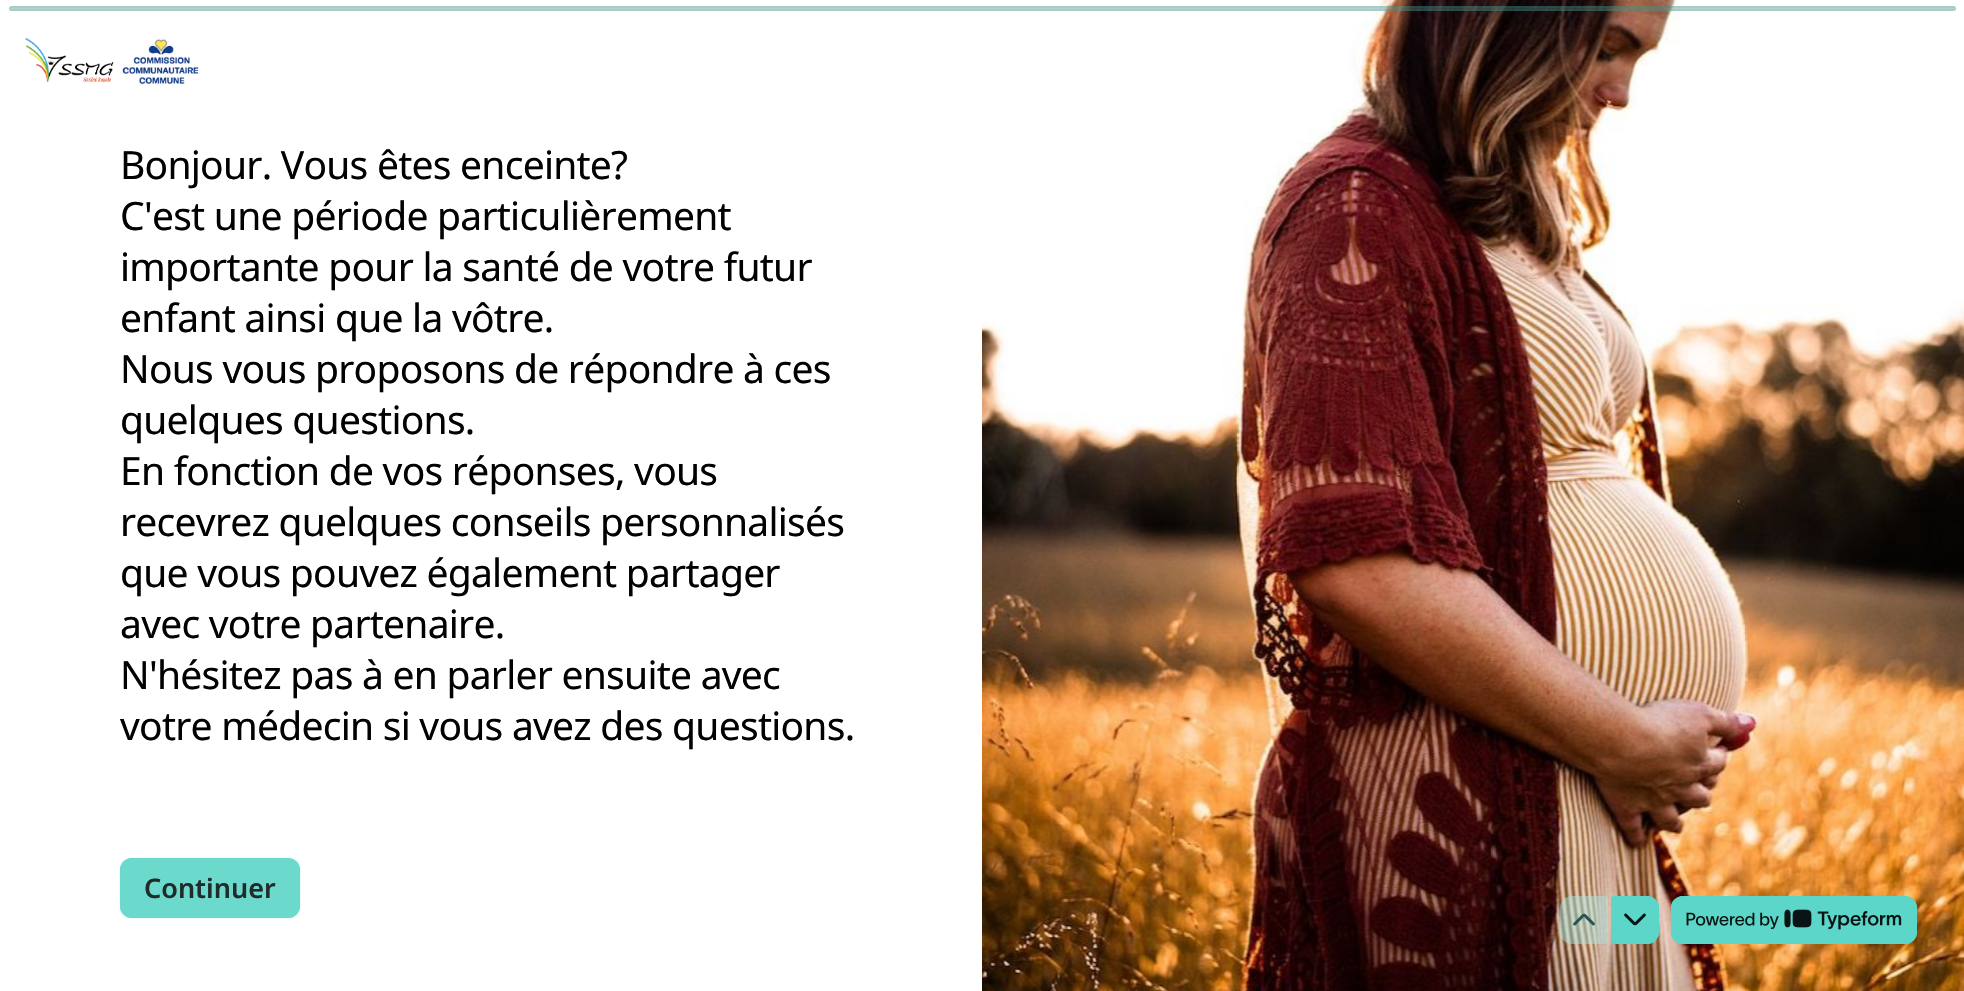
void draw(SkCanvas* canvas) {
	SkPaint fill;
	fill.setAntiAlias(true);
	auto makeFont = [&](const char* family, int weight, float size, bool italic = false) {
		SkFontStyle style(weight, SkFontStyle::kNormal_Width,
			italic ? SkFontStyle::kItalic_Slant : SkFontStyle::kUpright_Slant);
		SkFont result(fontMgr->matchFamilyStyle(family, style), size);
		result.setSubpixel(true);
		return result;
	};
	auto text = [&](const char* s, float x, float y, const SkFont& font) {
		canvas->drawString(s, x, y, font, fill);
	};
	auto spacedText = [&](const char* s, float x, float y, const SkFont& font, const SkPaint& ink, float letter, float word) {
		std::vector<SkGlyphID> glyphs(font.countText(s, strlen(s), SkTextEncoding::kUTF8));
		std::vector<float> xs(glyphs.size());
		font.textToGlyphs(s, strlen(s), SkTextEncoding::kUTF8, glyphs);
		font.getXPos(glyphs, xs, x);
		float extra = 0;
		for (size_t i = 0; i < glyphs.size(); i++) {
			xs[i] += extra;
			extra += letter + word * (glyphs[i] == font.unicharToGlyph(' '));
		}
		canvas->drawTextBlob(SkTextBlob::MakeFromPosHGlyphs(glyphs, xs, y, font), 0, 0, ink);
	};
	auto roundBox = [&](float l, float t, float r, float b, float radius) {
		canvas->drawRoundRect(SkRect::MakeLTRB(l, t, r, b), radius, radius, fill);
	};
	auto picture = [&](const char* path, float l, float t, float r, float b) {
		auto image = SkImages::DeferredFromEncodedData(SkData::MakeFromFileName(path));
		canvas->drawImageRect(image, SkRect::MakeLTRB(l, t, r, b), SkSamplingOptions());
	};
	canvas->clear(0xFFFFFFFF);
	picture("image1.png", 982, 0, 1964, 991);
	fill.setColor(0x6641938A);
	roundBox(9, 6, 1956, 11, 2.5f);
	fill.setStyle(SkPaint::kStroke_Style);
	fill.setStrokeWidth(2);
	fill.setColor(0x1A41938A);
	canvas->drawRoundRect(SkRect::MakeLTRB(10, 7, 1955, 10), 1.5f, 1.5f, fill);
	picture("image0.png", 25, 38, 199, 85);
	fill.setColor(0xFF6BDACD);
	canvas->drawRoundRect(SkRect::MakeLTRB(121, 859, 299, 917), 11, 11, fill);
	fill.setStyle(SkPaint::kFill_Style);
	fill.setMaskFilter(SkMaskFilter::MakeBlur(kNormal_SkBlurStyle, 0.5f));
	canvas->drawRoundRect(SkRect::MakeLTRB(120, 858, 300, 918), 12, 12, fill);
	fill.setMaskFilter(nullptr);
	fill.setColor(0x4DFFFFFF);
	canvas->drawPath(SkPathBuilder().moveTo(1572, 896).lineTo(1605, 896).cubicTo(1606.5f, 896, 1608, 897.5f, 1608, 899).lineTo(1608, 941).cubicTo(1608, 942.5f, 1606.5f, 944, 1605, 944).lineTo(1572, 944).cubicTo(1565.5f, 944, 1560, 938.5f, 1560, 932).lineTo(1560, 908).cubicTo(1560, 901.5f, 1565.5f, 896, 1572, 896).close().detach(), fill);
	fill.setColor(0x3D5CD6C8);
	canvas->drawPath(SkPathBuilder().moveTo(1572, 896).lineTo(1605, 896).cubicTo(1606.5f, 896, 1608, 897.5f, 1608, 899).lineTo(1608, 941).cubicTo(1608, 942.5f, 1606.5f, 944, 1605, 944).lineTo(1572, 944).cubicTo(1565.5f, 944, 1560, 938.5f, 1560, 932).lineTo(1560, 908).cubicTo(1560, 901.5f, 1565.5f, 896, 1572, 896).close().detach(), fill);
	picture("image2.png", 1573, 913, 1595, 926);
	fill.setStyle(SkPaint::kStroke_Style);
	fill.setColor(0xFF5CD6C8);
	canvas->drawPath(SkPathBuilder().moveTo(1614, 897).lineTo(1647, 897).cubicTo(1653, 897, 1658, 902, 1658, 908).lineTo(1658, 932).cubicTo(1658, 938, 1653, 943, 1647, 943).lineTo(1614, 943).cubicTo(1613, 943, 1612, 942, 1612, 941).lineTo(1612, 899).cubicTo(1612, 898, 1613, 897, 1614, 897).close().detach(), fill);
	fill.setStyle(SkPaint::kFill_Style);
	canvas->drawPath(SkPathBuilder().moveTo(1614, 896).lineTo(1647, 896).cubicTo(1653.5f, 896, 1659, 901.5f, 1659, 908).lineTo(1659, 932).cubicTo(1659, 938.5f, 1653.5f, 944, 1647, 944).lineTo(1614, 944).cubicTo(1612.5f, 944, 1611, 942.5f, 1611, 941).lineTo(1611, 899).cubicTo(1611, 897.5f, 1612.5f, 896, 1614, 896).close().detach(), fill);
	picture("image3.png", 1624, 913, 1646, 926);
	fill.setStyle(SkPaint::kStroke_Style);
	canvas->drawRoundRect(SkRect::MakeLTRB(1672, 897, 1916, 943), 11, 11, fill);
	fill.setStyle(SkPaint::kFill_Style);
	roundBox(1671, 896, 1917, 944, 12);
	picture("image4.png", 1686, 909, 1902, 930);
	auto font1 = makeFont("Noto Sans", 400, 39);
	fill.setColor(0xFF010101);
	spacedText("Bonjour. Vous êtes enceinte?", 120, 179, font1, fill, -0.75f, 0);
	spacedText("C'est une période particulièrement", 120, 230, font1, fill, -0.75f, 0);
	spacedText("importante pour la santé de votre futur", 120, 281, font1, fill, -0.75f, 0);
	spacedText("enfant ainsi que la vôtre.", 120, 332, font1, fill, -0.75f, 0);
	spacedText("Nous vous proposons de répondre à ces", 120, 383, font1, fill, -0.75f, 0);
	spacedText("quelques questions.", 120, 434, font1, fill, -0.75f, 0);
	spacedText("En fonction de vos réponses, vous", 120, 485, font1, fill, -0.75f, 0);
	spacedText("recevrez quelques conseils personnalisés", 120, 536, font1, fill, -0.75f, 0);
	spacedText("que vous pouvez également partager", 120, 587, font1, fill, -0.75f, 0);
	spacedText("avec votre partenaire.", 120, 638, font1, fill, -0.75f, 0);
	spacedText("N'hésitez pas à en parler ensuite avec", 120, 689, font1, fill, -0.75f, 0);
	spacedText("votre médecin si vous avez des questions.", 120, 740, font1, fill, -0.75f, 0);
	auto font2 = makeFont("Noto Sans", 600, 27);
	fill.setColor(0xFF202B2A);
	text("Continuer", 144, 898, font2);
}
